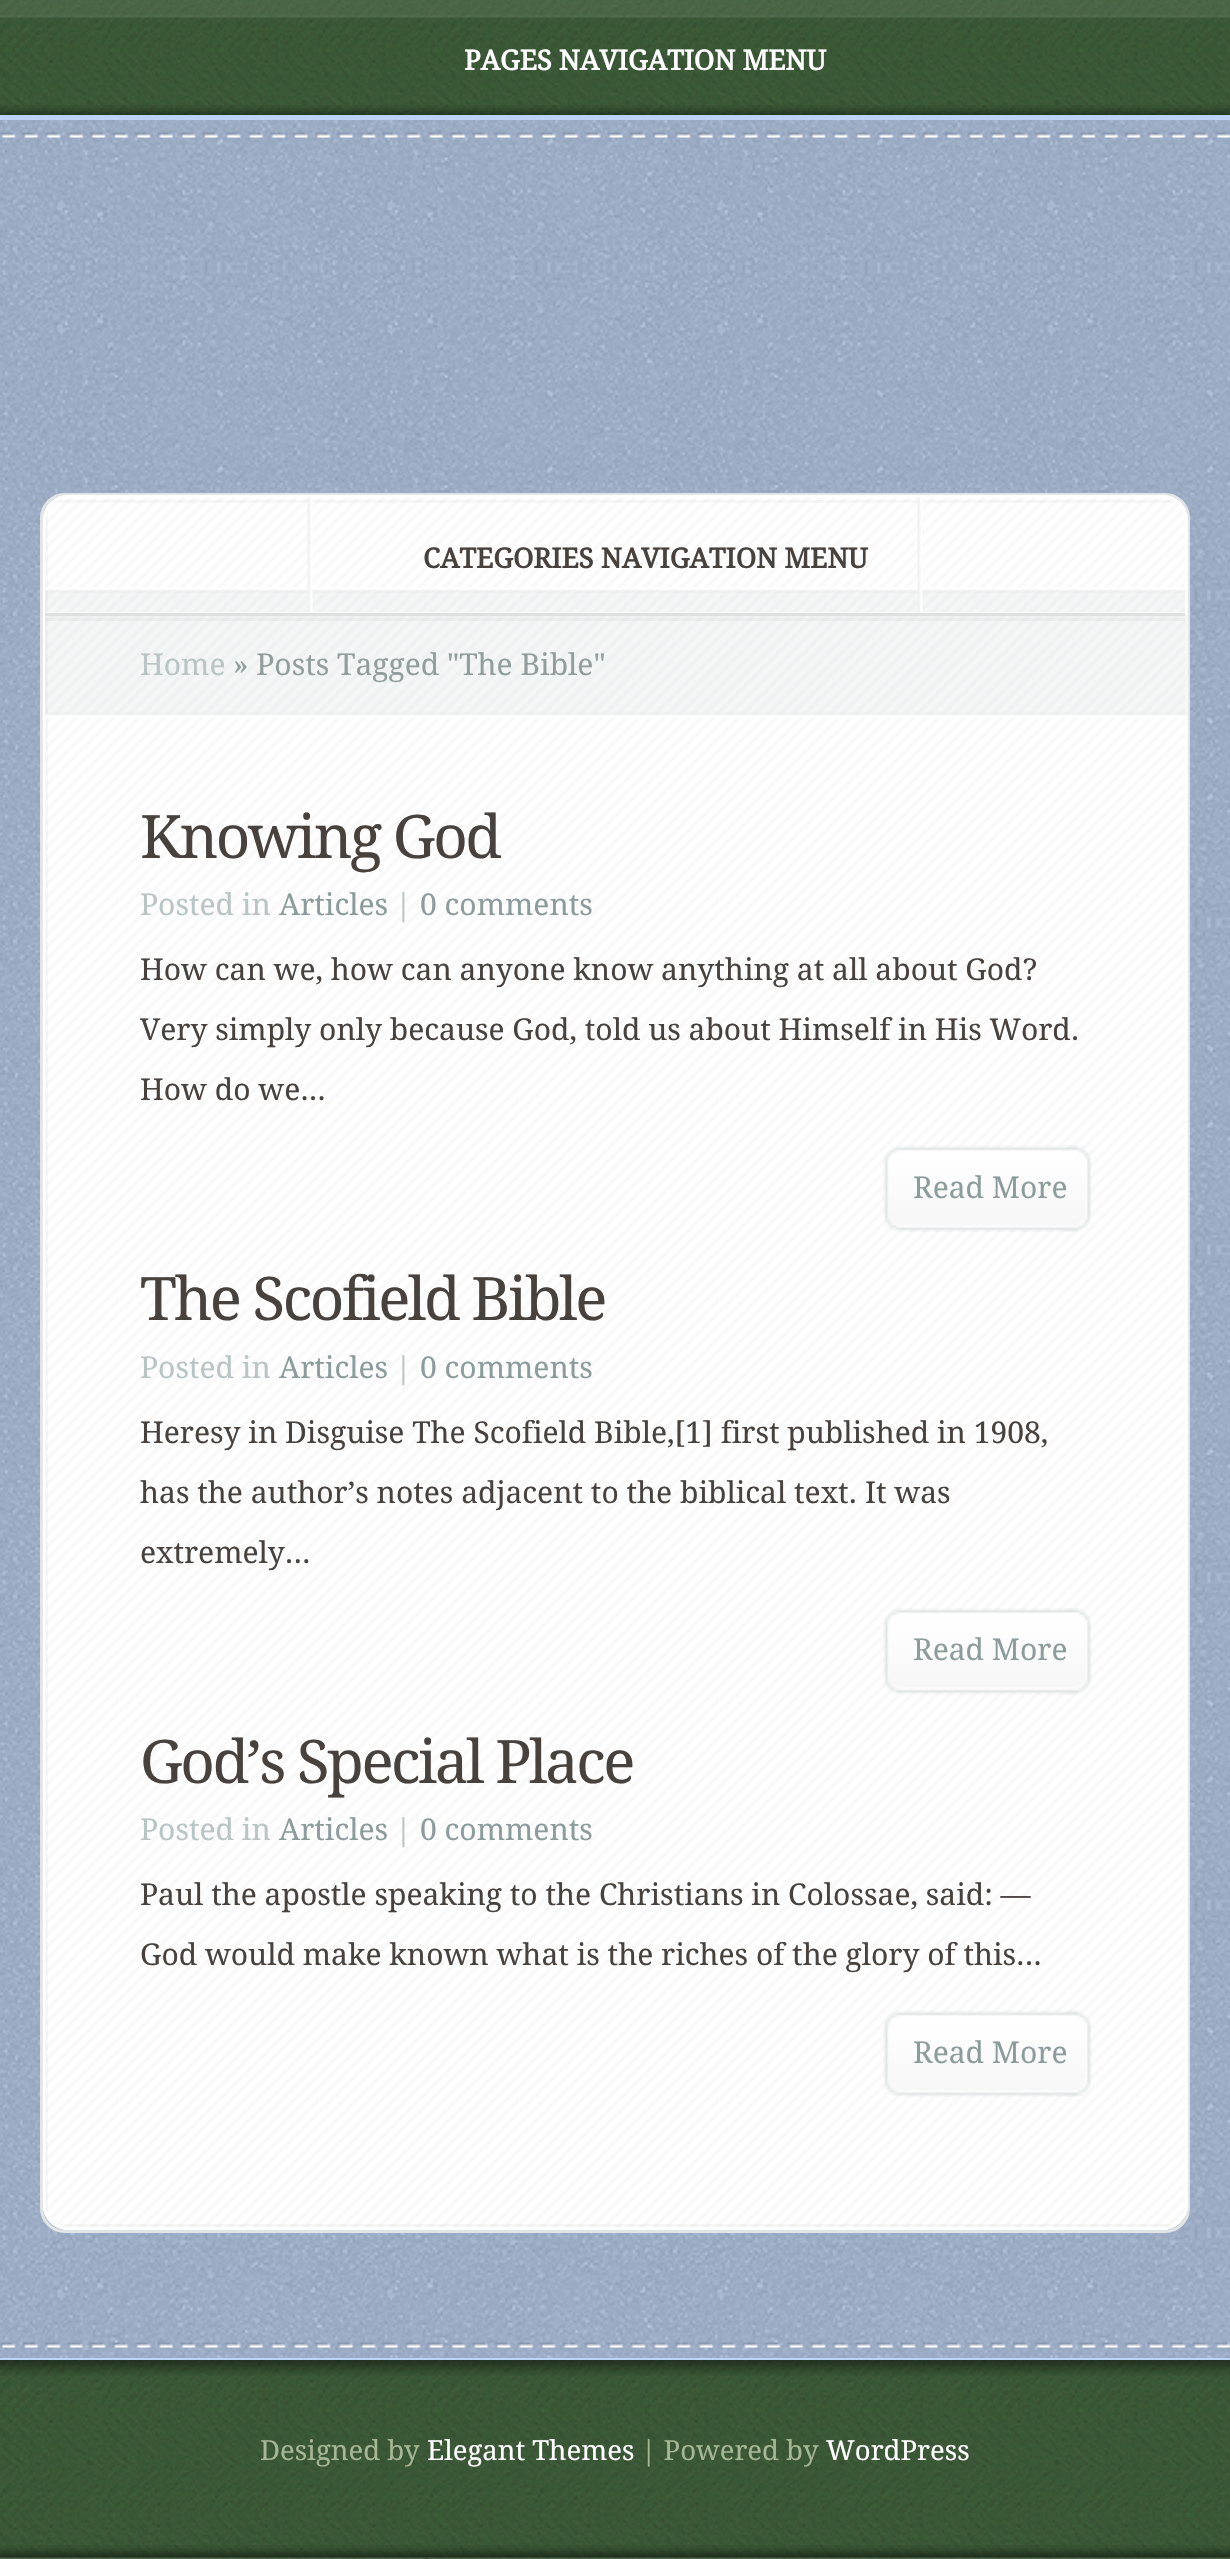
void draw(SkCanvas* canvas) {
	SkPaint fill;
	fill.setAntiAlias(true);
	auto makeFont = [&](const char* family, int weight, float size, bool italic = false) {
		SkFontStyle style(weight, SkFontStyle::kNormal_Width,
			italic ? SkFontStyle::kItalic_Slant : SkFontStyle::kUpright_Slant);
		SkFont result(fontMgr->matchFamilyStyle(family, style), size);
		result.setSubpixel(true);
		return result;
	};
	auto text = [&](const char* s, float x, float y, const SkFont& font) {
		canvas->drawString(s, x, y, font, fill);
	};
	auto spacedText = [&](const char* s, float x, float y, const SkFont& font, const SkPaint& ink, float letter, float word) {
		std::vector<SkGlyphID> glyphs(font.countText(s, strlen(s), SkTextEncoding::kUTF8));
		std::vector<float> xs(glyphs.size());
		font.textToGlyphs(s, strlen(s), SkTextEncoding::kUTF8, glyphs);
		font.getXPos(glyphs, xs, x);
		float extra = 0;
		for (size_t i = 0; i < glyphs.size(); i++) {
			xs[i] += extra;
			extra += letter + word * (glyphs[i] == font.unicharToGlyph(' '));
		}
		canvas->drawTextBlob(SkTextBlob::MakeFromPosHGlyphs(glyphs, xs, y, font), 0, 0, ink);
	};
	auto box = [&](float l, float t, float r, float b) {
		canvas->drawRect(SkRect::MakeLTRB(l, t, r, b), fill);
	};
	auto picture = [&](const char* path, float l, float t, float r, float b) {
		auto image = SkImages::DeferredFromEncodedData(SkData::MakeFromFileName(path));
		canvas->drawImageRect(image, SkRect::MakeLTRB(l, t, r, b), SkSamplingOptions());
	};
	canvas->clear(0xFFFFFFFF);
	picture("image0.png", 0, 0, 1230, 115);
	picture("image1.png", 0, 0, 1230, 18);
	picture("image2.png", 0, 105, 1230, 115);
	fill.setColor(0xFFBCD2F7);
	box(0, 115, 1230, 2360);
	picture("image3.png", 0, 120, 1230, 2358);
	picture("image4.png", 0, 132, 1230, 138);
	fill.setStyle(SkPaint::kStroke_Style);
	fill.setStrokeWidth(3);
	fill.setColor(0xFFE2E5E5);
	canvas->drawRoundRect(SkRect::MakeLTRB(41.5f, 494.5f, 1188.5f, 2231.5f), 23.5f, 23.5f, fill);
	picture("image5.png", 42, 495, 1187, 2230);
	fill.setColor(0xFFFFFFFF);
	canvas->drawRoundRect(SkRect::MakeLTRB(44.5f, 496.5f, 1186.5f, 2228.5f), 23.5f, 23.5f, fill);
	picture("image6.png", 45, 512, 48, 2212);
	picture("image7.png", 56, 500, 1174, 503);
	fill.setStyle(SkPaint::kFill_Style);
	fill.setColor(0x08000000);
	box(60, 2224, 1170, 2227);
	picture("image8.png", 45, 587, 1185, 613);
	picture("image9.png", 307, 497, 313, 612);
	picture("image10.png", 917, 497, 923, 613);
	picture("image11.png", 45, 612, 1188, 718);
	box(45, 618, 1185, 621);
	fill.setColor(0xFFDEE0E0);
	box(45, 613, 1185, 616);
	picture("image12.png", 1064, 1145, 1092, 1232);
	picture("image13.png", 883, 1145, 1078, 1232);
	picture("image14.png", 1064, 1608, 1092, 1695);
	picture("image15.png", 883, 1608, 1078, 1695);
	picture("image16.png", 1064, 2010, 1092, 2097);
	picture("image17.png", 883, 2010, 1078, 2097);
	picture("image18.png", 0, 2342, 1230, 2348);
	picture("image19.png", 0, 2360, 1230, 2559);
	picture("image20.png", 0, 2360, 1230, 2376);
	picture("image21.png", 0, 2545, 1230, 2558);
	picture("image22.png", 0, 2557, 1230, 2559);
	picture("image23.png", 425, 2557, 430, 2559);
	auto font1 = makeFont("Droid Serif", 700, 27.5f);
	fill.setColor(0xFFFFFFFF);
	text("PAGES NAVIGATION MENU", 464, 70, font1);
	fill.setColor(0xFF48423F);
	text("CATEGORIES NAVIGATION MENU", 423, 568, font1);
	auto font2 = makeFont("Droid Serif", 400, 30);
	fill.setColor(0xFFB9C5C5);
	text("Home", 140, 675, font2);
	fill.setColor(0xFF929E9E);
	text("» Posts Tagged \"The Bible\"", 233, 675, font2);
	auto font3 = makeFont("Droid Serif", 400, 60);
	fill.setColor(0xFF48423F);
	spacedText("Knowing God", 140, 858, font3, fill, -2.5f, 0);
	fill.setColor(0xFFB9C5C5);
	text("Posted in", 140, 915, font2);
	fill.setColor(0xFF8C9C9C);
	text("Articles", 279, 915, font2);
	fill.setColor(0xFFB9C5C5);
	text("|", 395, 915, font2);
	fill.setColor(0xFF8C9C9C);
	text("0 comments", 420, 915, font2);
	fill.setColor(0xFF48423F);
	text("How can we, how can anyone know anything at all about God?", 140, 980, font2);
	text("Very simply only because God, told us about Himself in His Word.", 140, 1040, font2);
	text("How do we...", 140, 1100, font2);
	fill.setColor(0xFF8C9C9C);
	text("Read More", 913, 1198, font2);
	fill.setColor(0xFF48423F);
	spacedText("The Scofield Bible", 140, 1320, font3, fill, -2.5f, 0);
	fill.setColor(0xFFB9C5C5);
	text("Posted in", 140, 1378, font2);
	fill.setColor(0xFF8C9C9C);
	text("Articles", 279, 1378, font2);
	fill.setColor(0xFFB9C5C5);
	text("|", 395, 1378, font2);
	fill.setColor(0xFF8C9C9C);
	text("0 comments", 420, 1378, font2);
	fill.setColor(0xFF48423F);
	text("Heresy in Disguise The Scofield Bible,[1] first published in 1908,", 140, 1443, font2);
	text("has the author’s notes adjacent to the biblical text. It was", 140, 1503, font2);
	text("extremely...", 140, 1563, font2);
	fill.setColor(0xFF8C9C9C);
	text("Read More", 913, 1660, font2);
	fill.setColor(0xFF48423F);
	spacedText("God’s Special Place", 140, 1783, font3, fill, -2.5f, 0);
	fill.setColor(0xFFB9C5C5);
	text("Posted in", 140, 1840, font2);
	fill.setColor(0xFF8C9C9C);
	text("Articles", 279, 1840, font2);
	fill.setColor(0xFFB9C5C5);
	text("|", 395, 1840, font2);
	fill.setColor(0xFF8C9C9C);
	text("0 comments", 420, 1840, font2);
	fill.setColor(0xFF48423F);
	text("Paul the apostle speaking to the Christians in Colossae, said: —", 140, 1905, font2);
	text("God would make known what is the riches of the glory of this...", 140, 1965, font2);
	fill.setColor(0xFF8C9C9C);
	text("Read More", 913, 2063, font2);
	auto font4 = makeFont("Droid Serif", 400, 27.5f);
	fill.setColor(0xFFA5B795);
	text("Designed by", 260, 2460, font4);
	fill.setColor(0xFFFFFFFF);
	text("Elegant Themes", 427, 2460, font4);
	fill.setColor(0xFFA5B795);
	text("| Powered by", 641, 2460, font4);
	fill.setColor(0xFFFFFFFF);
	text("WordPress", 826, 2460, font4);
}
